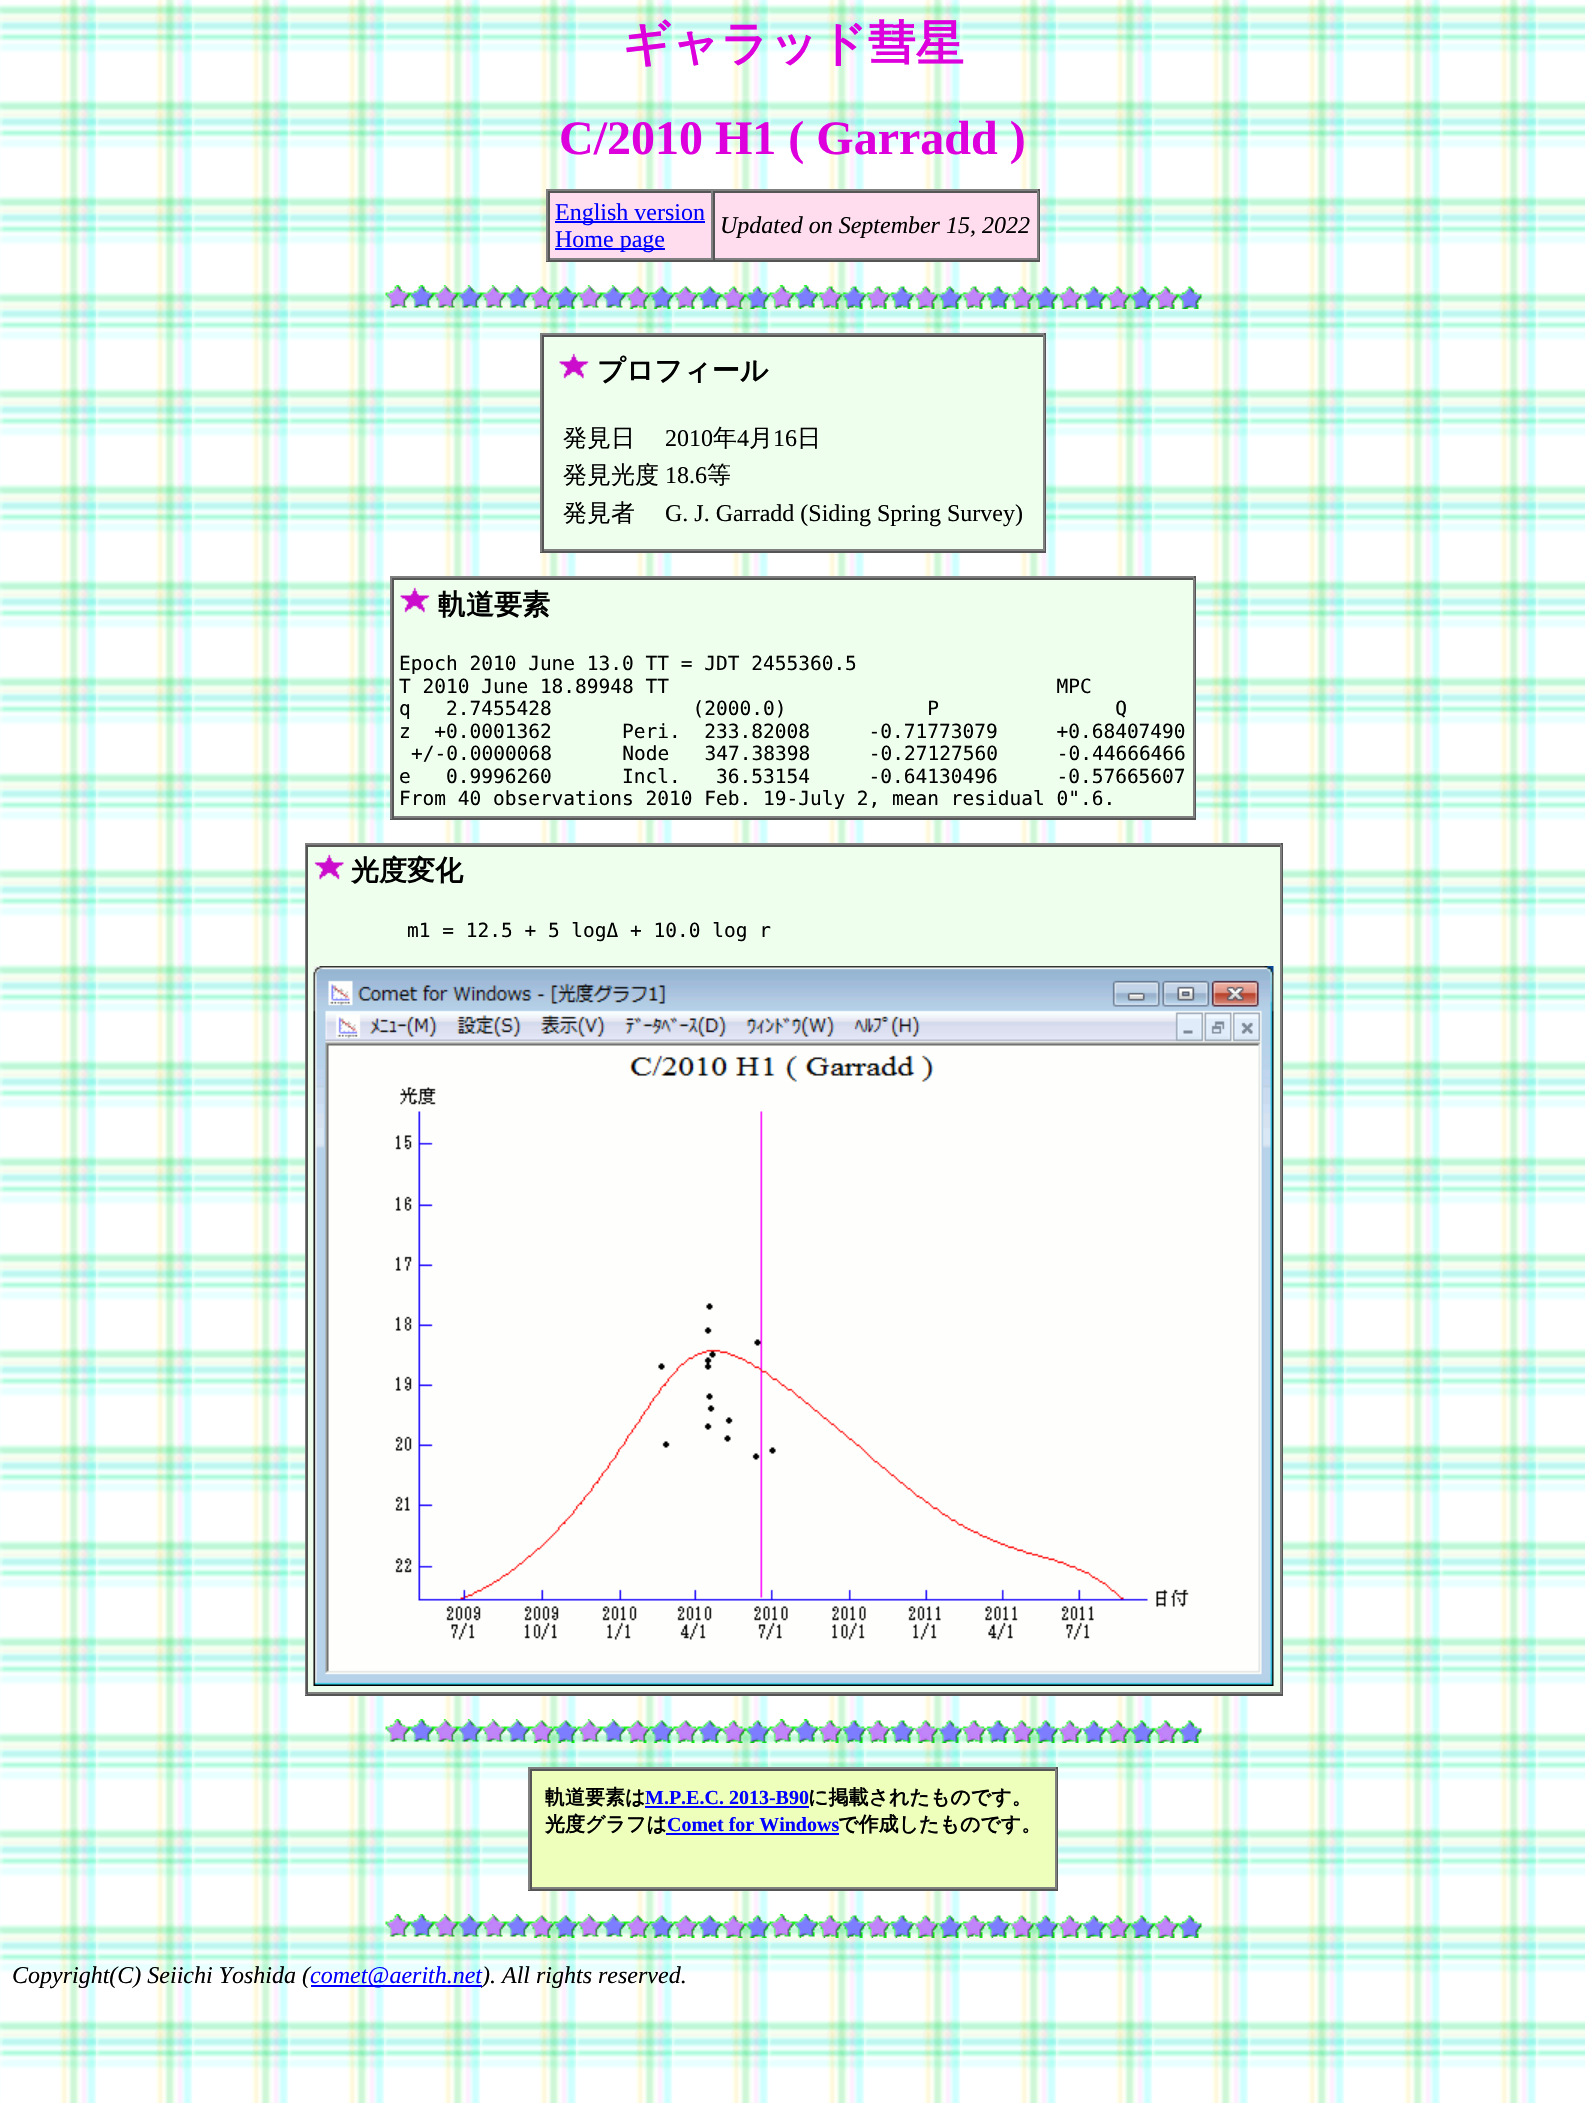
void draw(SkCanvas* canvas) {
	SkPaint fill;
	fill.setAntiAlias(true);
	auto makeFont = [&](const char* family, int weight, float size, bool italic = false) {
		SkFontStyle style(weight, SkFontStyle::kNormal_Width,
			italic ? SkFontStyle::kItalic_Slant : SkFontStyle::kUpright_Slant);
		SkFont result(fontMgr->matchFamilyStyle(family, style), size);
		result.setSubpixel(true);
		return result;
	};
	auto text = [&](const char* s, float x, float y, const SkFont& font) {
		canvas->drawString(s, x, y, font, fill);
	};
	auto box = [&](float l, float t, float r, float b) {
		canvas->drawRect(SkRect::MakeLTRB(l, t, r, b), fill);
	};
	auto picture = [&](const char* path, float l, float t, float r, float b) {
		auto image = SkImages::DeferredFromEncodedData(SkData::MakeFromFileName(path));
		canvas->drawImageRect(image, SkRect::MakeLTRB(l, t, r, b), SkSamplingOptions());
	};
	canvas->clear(0xFFFFFFFF);
	picture("image0.png", 0, 0, 1585, 2103);
	fill.setColor(0xFFFFDDEE);
	box(550, 193, 1037, 258);
	fill.setColor(0xFF808080);
	box(546, 189, 1040, 191);
	fill.setColor(0xFF555555);
	box(1038, 189, 1040, 261);
	box(546, 260, 1040, 262);
	fill.setColor(0xFF808080);
	box(546, 189, 548, 261);
	fill.setColor(0xFF555555);
	box(548, 191, 1038, 193);
	fill.setColor(0xFF808080);
	box(711, 191, 713, 260);
	box(548, 258, 713, 260);
	fill.setColor(0xFF555555);
	box(548, 191, 550, 260);
	fill.setColor(0xFF0000FF);
	box(555, 221, 705, 223);
	box(555, 248, 665, 250);
	fill.setColor(0xFF808080);
	box(1037, 191, 1039, 260);
	box(713, 258, 1038, 260);
	fill.setColor(0xFF555555);
	box(713, 191, 715, 260);
	picture("image1.png", 385, 285, 1202, 309);
	fill.setColor(0xFFEEFFEE);
	box(544, 337, 1043, 549);
	fill.setColor(0xFF808080);
	box(540, 333, 1046, 335);
	fill.setColor(0xFF555555);
	box(1044, 333, 1046, 552);
	box(540, 551, 1046, 553);
	fill.setColor(0xFF808080);
	box(540, 333, 542, 552);
	fill.setColor(0xFF555555);
	box(542, 335, 1044, 337);
	fill.setColor(0xFF808080);
	box(1043, 335, 1045, 551);
	box(542, 549, 1044, 551);
	fill.setColor(0xFF555555);
	box(542, 335, 544, 551);
	picture("image2.png", 559, 353, 589, 379);
	fill.setColor(0xFFEEFFEE);
	box(394, 580, 1193, 816);
	fill.setColor(0xFF808080);
	box(390, 576, 1196, 578);
	fill.setColor(0xFF555555);
	box(1194, 576, 1196, 819);
	box(390, 818, 1196, 820);
	fill.setColor(0xFF808080);
	box(390, 576, 392, 819);
	fill.setColor(0xFF555555);
	box(392, 578, 1194, 580);
	fill.setColor(0xFF808080);
	box(1193, 578, 1195, 818);
	box(392, 816, 1194, 818);
	fill.setColor(0xFF555555);
	box(392, 578, 394, 818);
	picture("image2.png", 400, 587, 430, 613);
	fill.setColor(0xFFEEFFEE);
	box(308, 847, 1280, 1692);
	fill.setColor(0xFF808080);
	box(305, 843, 1283, 845);
	fill.setColor(0xFF555555);
	box(1281, 843, 1283, 1695);
	box(305, 1694, 1283, 1696);
	fill.setColor(0xFF808080);
	box(305, 843, 307, 1695);
	fill.setColor(0xFF555555);
	box(306, 845, 1281, 847);
	fill.setColor(0xFF808080);
	box(1280, 845, 1282, 1694);
	box(306, 1692, 1281, 1694);
	fill.setColor(0xFF555555);
	box(306, 845, 308, 1694);
	picture("image3.png", 314, 854, 344, 880);
	picture("image4.png", 313, 966, 1274, 1686);
	picture("image5.png", 385, 1719, 1202, 1743);
	fill.setColor(0xFFEEFFBB);
	box(532, 1771, 1055, 1887);
	fill.setColor(0xFF808080);
	box(528, 1767, 1058, 1769);
	fill.setColor(0xFF555555);
	box(1056, 1767, 1058, 1890);
	box(528, 1889, 1058, 1891);
	fill.setColor(0xFF808080);
	box(528, 1767, 530, 1890);
	fill.setColor(0xFF555555);
	box(530, 1769, 1056, 1771);
	fill.setColor(0xFF808080);
	box(1055, 1769, 1057, 1889);
	box(530, 1887, 1056, 1889);
	fill.setColor(0xFF555555);
	box(530, 1769, 532, 1889);
	fill.setColor(0xFF0000FF);
	box(645, 1806, 809, 1808);
	box(666, 1833, 839, 1835);
	picture("image6.png", 385, 1914, 1202, 1938);
	auto font1 = makeFont("WenQuanYi Zen Hei", 700, 48);
	fill.setColor(0xFFDD00DD);
	text("ギャラッド彗星", 622, 60, font1);
	auto font2 = makeFont("Liberation Serif", 700, 48);
	text("C/2010 H1 ( Garradd )", 559, 154, font2);
	auto font3 = makeFont("Liberation Serif", 400, 24);
	fill.setColor(0xFF0000FF);
	text("English version", 555, 220, font3);
	text("Home page", 555, 247, font3);
	auto font4 = makeFont("Liberation Serif", 400, 24, true);
	fill.setColor(0xFF000000);
	text("Updated on September 15, 2022", 720, 233, font4);
	auto font5 = makeFont("WenQuanYi Zen Hei", 700, 28);
	text("プロフィール", 597, 380, font5);
	auto font6 = makeFont("WenQuanYi Zen Hei", 500, 24);
	text("発見日", 563, 446, font6);
	text("2010", 665, 446, font3);
	text("年", 713, 446, font6);
	text("4", 737, 446, font3);
	text("月", 749, 446, font6);
	text("16", 773, 446, font3);
	text("日", 797, 446, font6);
	text("発見光度", 563, 483, font6);
	text("18.6", 665, 483, font3);
	text("等", 707, 483, font6);
	text("発見者", 563, 521, font6);
	text("G. J. Garradd (Siding Spring Survey)", 665, 521, font3);
	text("軌道要素", 438, 614, font5);
	auto font7 = makeFont("DejaVu Sans Mono", 400, 19.5f);
	text("Epoch 2010 June 13.0 TT = JDT 2455360.5", 399, 670, font7);
	text("T 2010 June 18.89948 TT                                 MPC", 399, 693, font7);
	text("q   2.7455428            (2000.0)            P               Q", 399, 715, font7);
	text("z  +0.0001362      Peri.  233.82008     -0.71773079     +0.68407490", 399, 738, font7);
	text("+/-0.0000068      Node   347.38398     -0.27127560     -0.44666466", 411, 760, font7);
	text("e   0.9996260      Incl.   36.53154     -0.64130496     -0.57665607", 399, 783, font7);
	text("From 40 observations 2010 Feb. 19-July 2, mean residual 0\".6.", 399, 805, font7);
	text("光度変化", 351, 880, font5);
	text("m1 = 12.5 + 5 logΔ + 10.0 log r", 407, 937, font7);
	auto font8 = makeFont("WenQuanYi Zen Hei", 700, 20);
	text("軌道要素は", 545, 1804, font8);
	auto font9 = makeFont("Liberation Serif", 700, 20);
	fill.setColor(0xFF0000FF);
	text("M.P.E.C. 2013-B90", 645, 1804, font9);
	fill.setColor(0xFF000000);
	text("に掲載されたものです。", 808, 1804, font8);
	text("光度グラフは", 545, 1831, font8);
	fill.setColor(0xFF0000FF);
	text("Comet for Windows", 667, 1831, font9);
	fill.setColor(0xFF000000);
	text("で作成したものです。", 838, 1831, font8);
	text("Copyright(C) Seiichi Yoshida (", 12, 1983, font4);
	fill.setColor(0xFF0000FF);
	box(311, 1985, 482, 1987);
	text("comet@aerith.net", 310, 1983, font4);
	fill.setColor(0xFF000000);
	text("). All rights reserved.", 482, 1983, font4);
}
